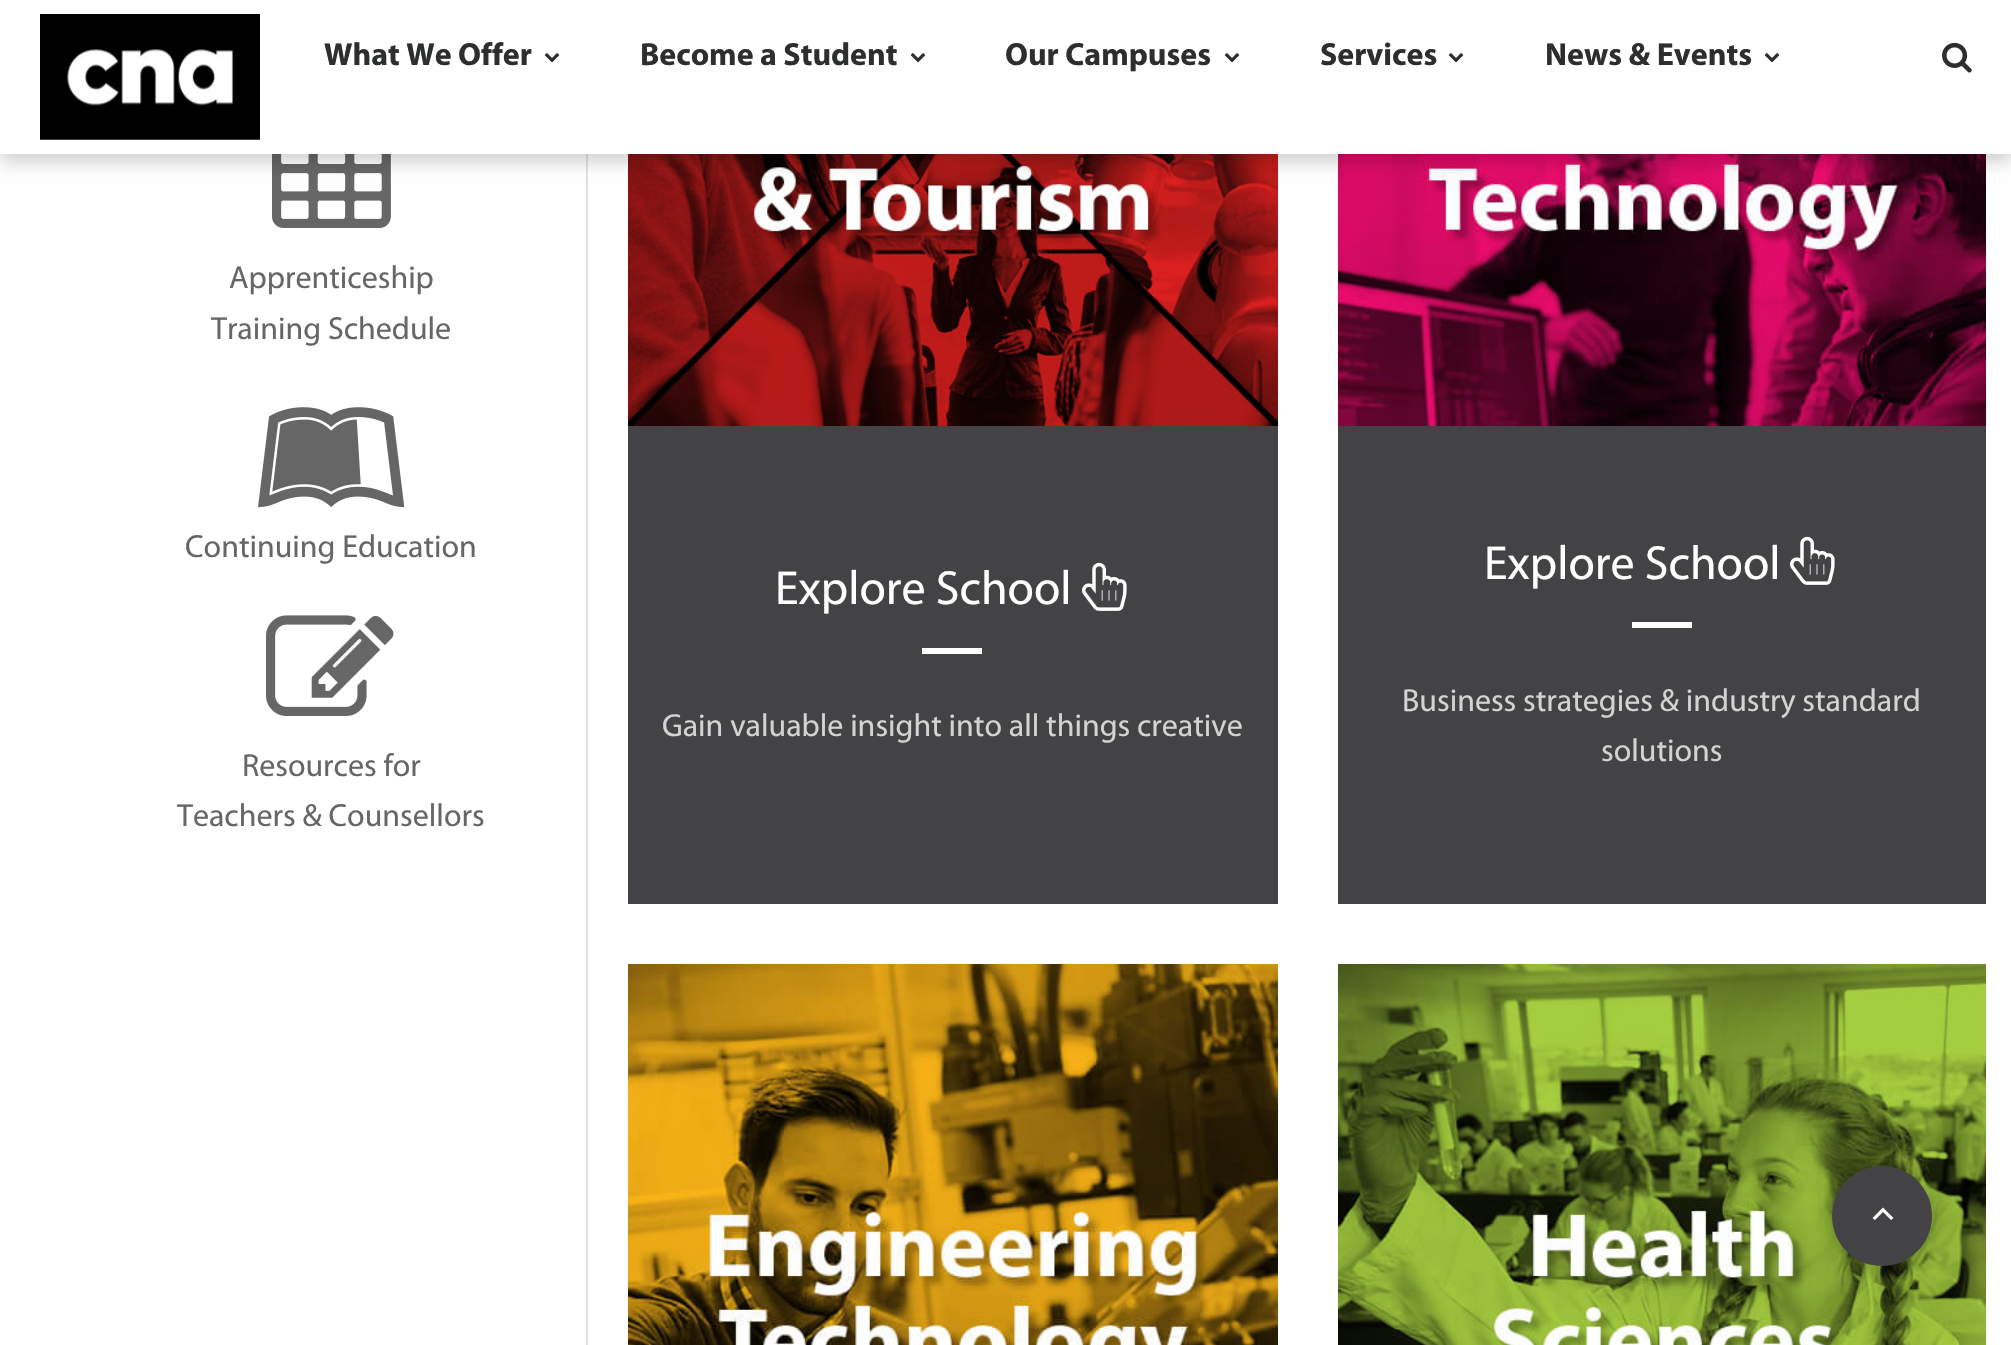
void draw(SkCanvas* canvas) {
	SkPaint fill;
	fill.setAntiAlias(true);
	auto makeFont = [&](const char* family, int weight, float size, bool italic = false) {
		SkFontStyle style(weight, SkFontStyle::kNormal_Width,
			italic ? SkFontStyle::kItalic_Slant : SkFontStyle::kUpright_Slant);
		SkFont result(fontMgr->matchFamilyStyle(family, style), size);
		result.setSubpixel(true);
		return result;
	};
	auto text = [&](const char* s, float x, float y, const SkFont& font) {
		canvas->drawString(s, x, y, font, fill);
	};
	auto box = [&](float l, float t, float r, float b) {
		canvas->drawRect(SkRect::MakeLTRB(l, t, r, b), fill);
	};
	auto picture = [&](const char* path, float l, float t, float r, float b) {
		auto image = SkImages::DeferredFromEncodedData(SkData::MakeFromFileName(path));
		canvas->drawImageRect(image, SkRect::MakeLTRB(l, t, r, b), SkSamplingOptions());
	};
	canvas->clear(0xFFFFFFFF);
	picture("image3.png", 272, 154, 391, 228);
	fill.setColor(0xFFDCE4EA);
	box(586, 154, 588, 1345);
	picture("image6.png", 628, 154, 1278, 426);
	picture("image8.png", 1338, 154, 1986, 426);
	fill.setColor(0x2E000000);
	fill.setMaskFilter(SkMaskFilter::MakeBlur(kNormal_SkBlurStyle, 8));
	canvas->drawRect(SkRect::MakeLTRB(0, 8, 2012, 162), fill);
	fill.setMaskFilter(nullptr);
	fill.setColor(0xFFFFFFFF);
	box(0, 0, 2011, 154);
	picture("image0.png", 40, 14, 260, 140);
	picture("image1.png", 544, 53, 560, 63);
	picture("image1.png", 910, 53, 926, 63);
	picture("image1.png", 1224, 53, 1240, 63);
	picture("image1.png", 1448, 53, 1464, 63);
	picture("image1.png", 1764, 53, 1780, 63);
	picture("image2.png", 1942, 42, 1972, 73);
	picture("image4.png", 258, 407, 405, 508);
	picture("image5.png", 266, 615, 394, 716);
	fill.setColor(0xFF434345);
	box(628, 426, 1278, 904);
	picture("image7.png", 1082, 562, 1127, 611);
	fill.setColor(0xFFFFFFFF);
	box(922, 648, 982, 654);
	fill.setColor(0xFF434345);
	box(1338, 426, 1986, 904);
	picture("image7.png", 1790, 536, 1835, 585);
	fill.setColor(0xFFFFFFFF);
	box(1632, 622, 1692, 628);
	picture("image9.png", 628, 964, 1278, 1345);
	picture("image10.png", 1338, 964, 1986, 1345);
	fill.setColor(0x38000000);
	fill.setMaskFilter(SkMaskFilter::MakeBlur(kNormal_SkBlurStyle, 10));
	canvas->drawRoundRect(SkRect::MakeLTRB(1832, 1166, 1932, 1266), 50, 50, fill);
	fill.setMaskFilter(nullptr);
	fill.setColor(0xFF434345);
	canvas->drawCircle(1882, 1216, 50, fill);
	fill.setColor(0xFFFFFFFF);
	canvas->drawPath(SkPathBuilder().moveTo(1875, 1220).lineTo(1883, 1212).lineTo(1891, 1220).lineTo(1893.5f, 1218).lineTo(1883, 1207.5f).lineTo(1872.5f, 1218).close().detach(), fill);
	auto font1 = makeFont("Myriad", 700, 32);
	fill.setColor(0xFF2D2E2E);
	text("What We Offer", 324, 65, font1);
	text("Become a Student", 640, 65, font1);
	text("Our Campuses", 1005, 65, font1);
	text("Services", 1320, 65, font1);
	text("News & Events", 1545, 65, font1);
	auto font2 = makeFont("Myriad", 400, 32);
	fill.setColor(0xFF666666);
	text("Apprenticeship", 229, 288, font2);
	text("Training Schedule", 211, 339, font2);
	text("Continuing Education", 185, 557, font2);
	text("Resources for", 242, 776, font2);
	text("Teachers & Counsellors", 177, 826, font2);
	auto font3 = makeFont("Myriad", 400, 48);
	fill.setColor(0xFFFFFFFF);
	text("Explore School", 775, 604, font3);
	fill.setColor(0xFFD3D3D3);
	text("Gain valuable insight into all things creative", 662, 736, font2);
	fill.setColor(0xFFFFFFFF);
	text("Explore School", 1484, 579, font3);
	fill.setColor(0xFFD3D3D3);
	text("Business strategies & industry standard", 1402, 711, font2);
	text("solutions", 1601, 761, font2);
}
